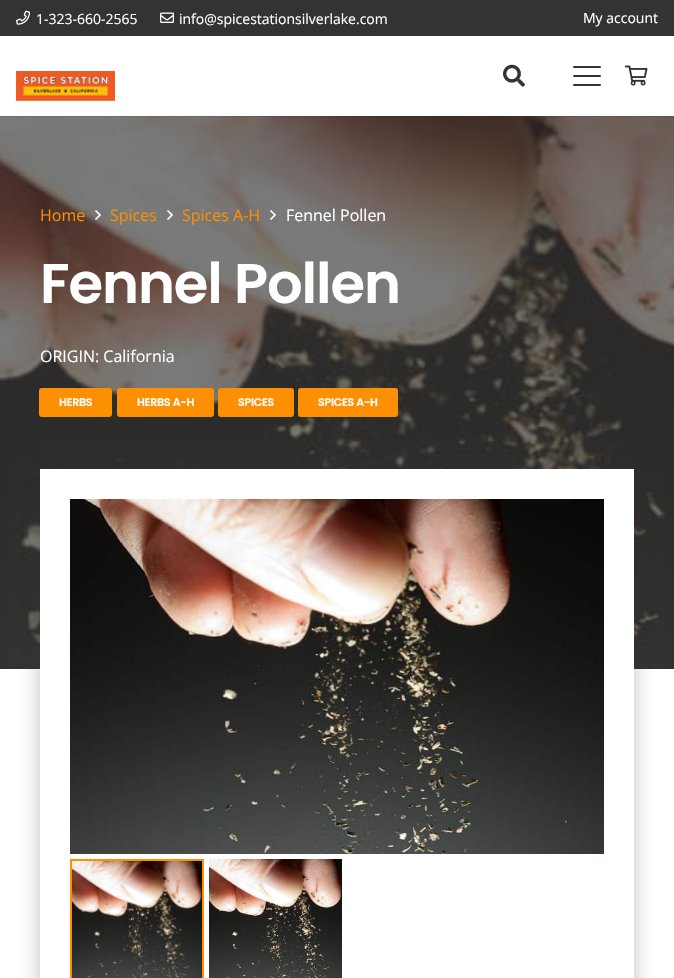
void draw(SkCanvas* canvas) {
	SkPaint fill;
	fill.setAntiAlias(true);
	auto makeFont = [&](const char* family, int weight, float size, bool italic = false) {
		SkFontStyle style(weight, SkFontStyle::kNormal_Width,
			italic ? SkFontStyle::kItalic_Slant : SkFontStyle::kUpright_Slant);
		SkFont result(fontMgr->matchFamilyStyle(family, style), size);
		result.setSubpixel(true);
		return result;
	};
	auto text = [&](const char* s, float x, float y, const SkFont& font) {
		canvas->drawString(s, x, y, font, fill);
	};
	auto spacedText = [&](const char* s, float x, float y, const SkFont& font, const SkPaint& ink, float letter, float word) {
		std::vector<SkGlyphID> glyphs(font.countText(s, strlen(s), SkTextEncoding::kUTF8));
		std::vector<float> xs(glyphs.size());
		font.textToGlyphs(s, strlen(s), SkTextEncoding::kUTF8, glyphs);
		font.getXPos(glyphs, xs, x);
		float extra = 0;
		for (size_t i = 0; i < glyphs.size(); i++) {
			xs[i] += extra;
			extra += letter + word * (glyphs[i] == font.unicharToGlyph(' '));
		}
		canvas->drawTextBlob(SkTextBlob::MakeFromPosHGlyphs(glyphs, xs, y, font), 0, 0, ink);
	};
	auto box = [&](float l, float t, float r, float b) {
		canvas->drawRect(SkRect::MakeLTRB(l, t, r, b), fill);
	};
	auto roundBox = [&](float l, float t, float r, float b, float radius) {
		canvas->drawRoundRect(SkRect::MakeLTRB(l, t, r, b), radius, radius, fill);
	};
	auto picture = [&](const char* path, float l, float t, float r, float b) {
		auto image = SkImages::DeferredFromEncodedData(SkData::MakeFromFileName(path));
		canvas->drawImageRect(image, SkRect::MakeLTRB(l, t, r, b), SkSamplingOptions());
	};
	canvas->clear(0xFFFFFFFF);
	fill.setColor(0xFF333333);
	box(0, 0, 674, 36);
	picture("image0.png", 16, 10, 30, 25);
	picture("image1.png", 160, 12, 174, 23);
	picture("image5.png", 0, 116, 674, 669);
	fill.setColor(0x14000000);
	box(0, 116, 674, 117);
	picture("image2.png", 16, 71, 115, 101);
	picture("image3.png", 503, 64, 525, 87);
	fill.setColor(0xFF333333);
	roundBox(573, 75, 601, 77, 1);
	roundBox(573, 66, 601, 68, 1);
	roundBox(573, 84, 601, 86, 1);
	picture("image4.png", 625, 65, 648, 86);
	picture("image6.png", 95, 210, 101, 220);
	picture("image7.png", 167, 210, 173, 220);
	picture("image8.png", 270, 210, 276, 220);
	fill.setColor(0xFFFD8F02);
	roundBox(39, 388, 112, 417, 3);
	roundBox(117, 388, 214, 417, 3);
	roundBox(218, 388, 294, 417, 3);
	roundBox(298, 388, 398, 417, 3);
	fill.setColor(0x4D333333);
	fill.setMaskFilter(SkMaskFilter::MakeBlur(kNormal_SkBlurStyle, 10));
	canvas->drawRect(SkRect::MakeLTRB(40, 469, 634, 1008), fill);
	fill.setMaskFilter(nullptr);
	fill.setColor(0xFFFFFFFF);
	box(40, 469, 634, 978);
	picture("image9.png", 70, 499, 604, 854);
	fill.setStyle(SkPaint::kStroke_Style);
	fill.setStrokeWidth(2);
	fill.setColor(0xFFFD8F02);
	canvas->drawRect(SkRect::MakeLTRB(71, 860, 203, 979), fill);
	picture("image10.png", 72, 861, 202, 978);
	picture("image11.png", 209, 859, 342, 978);
	auto font1 = makeFont("Open Sans", 400, 14);
	fill.setStyle(SkPaint::kFill_Style);
	fill.setColor(0xFFFFFFFF);
	text("1-323-660-2565", 36, 24, font1);
	text("info@spicestationsilverlake.com", 179, 24, font1);
	text("My account", 583, 23, font1);
	auto font2 = makeFont("Open Sans", 400, 16);
	fill.setColor(0xFFFD8F02);
	text("Home", 40, 221, font2);
	text("Spices", 110, 221, font2);
	text("Spices A-H", 182, 221, font2);
	fill.setColor(0xFFFFFFFF);
	text("Fennel Pollen", 286, 221, font2);
	auto font3 = makeFont("Poppins", 600, 56);
	spacedText("Fennel Pollen", 40, 303, font3, fill, -1.1f, 0);
	text("ORIGIN: California", 40, 362, font2);
	auto font4 = makeFont("Poppins", 600, 11);
	spacedText("HERBS", 59, 406, font4, fill, -0.25f, 0);
	spacedText("HERBS A-H", 137, 406, font4, fill, -0.25f, 0);
	spacedText("SPICES", 238, 406, font4, fill, -0.25f, 0);
	spacedText("SPICES A-H", 318, 406, font4, fill, -0.25f, 0);
}
